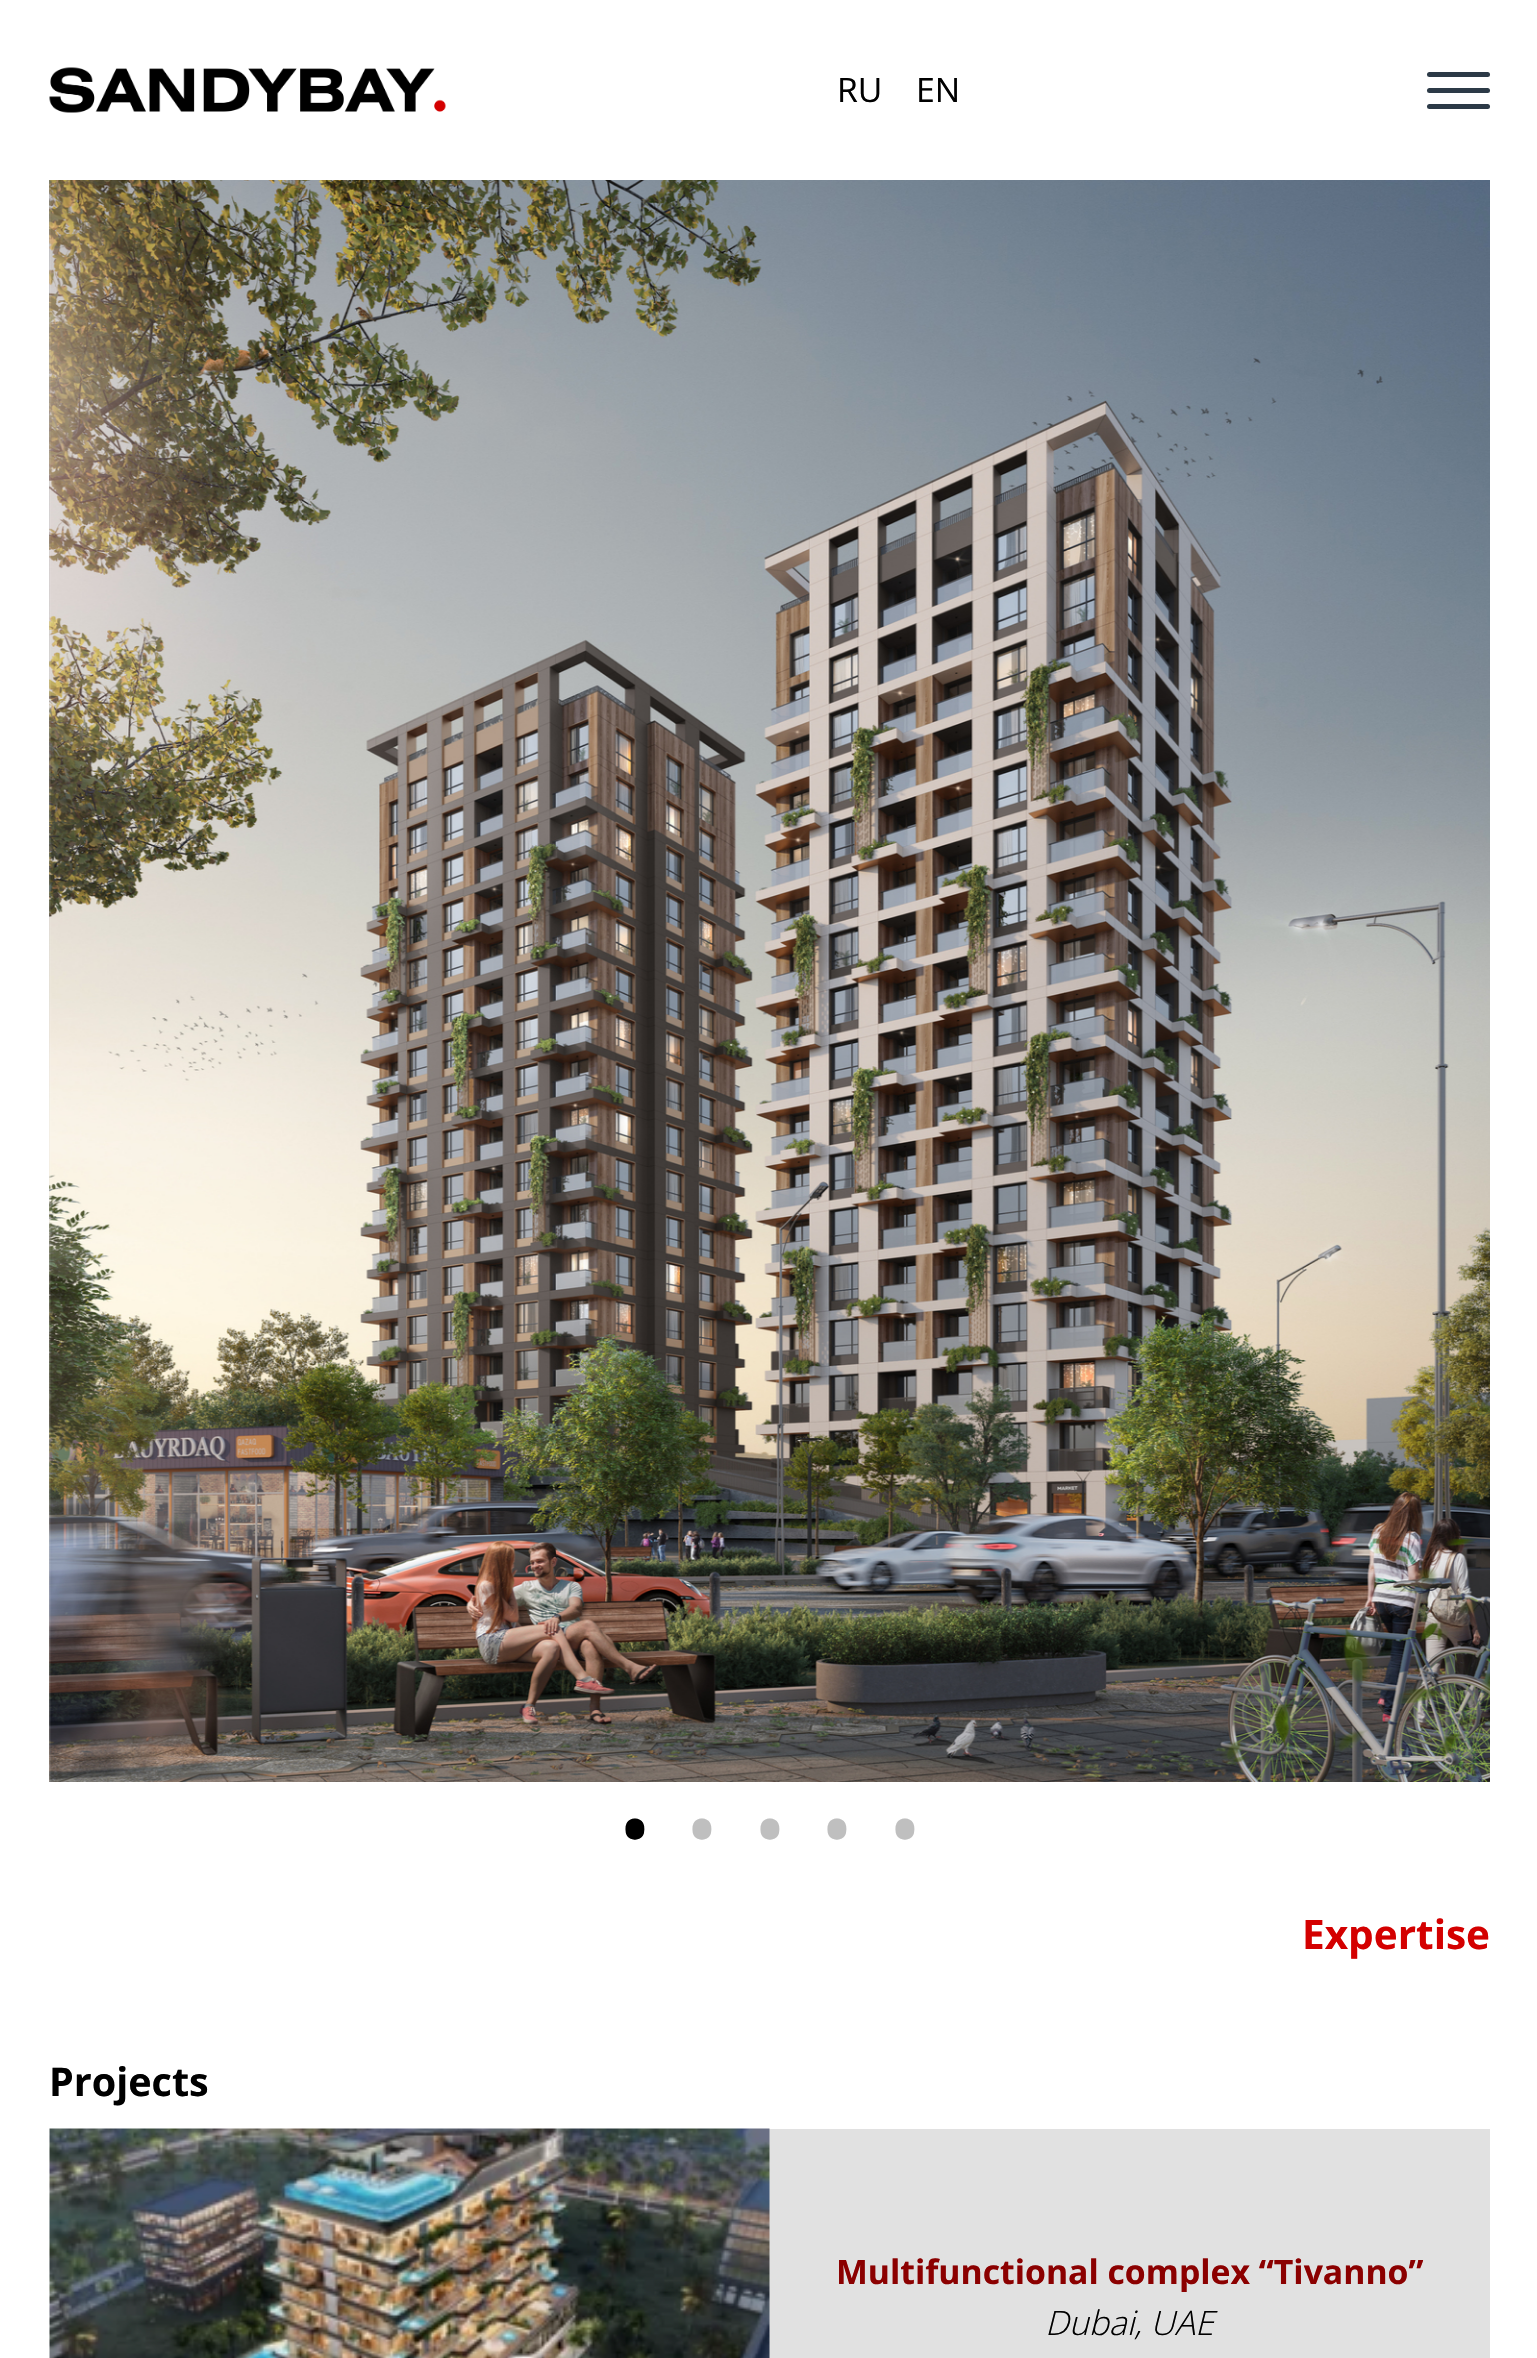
void draw(SkCanvas* canvas) {
	SkPaint fill;
	fill.setAntiAlias(true);
	auto makeFont = [&](const char* family, int weight, float size, bool italic = false) {
		SkFontStyle style(weight, SkFontStyle::kNormal_Width,
			italic ? SkFontStyle::kItalic_Slant : SkFontStyle::kUpright_Slant);
		SkFont result(fontMgr->matchFamilyStyle(family, style), size);
		result.setSubpixel(true);
		return result;
	};
	auto text = [&](const char* s, float x, float y, const SkFont& font) {
		canvas->drawString(s, x, y, font, fill);
	};
	auto box = [&](float l, float t, float r, float b) {
		canvas->drawRect(SkRect::MakeLTRB(l, t, r, b), fill);
	};
	auto roundBox = [&](float l, float t, float r, float b, float radius) {
		canvas->drawRoundRect(SkRect::MakeLTRB(l, t, r, b), radius, radius, fill);
	};
	auto picture = [&](const char* path, float l, float t, float r, float b) {
		auto image = SkImages::DeferredFromEncodedData(SkData::MakeFromFileName(path));
		canvas->drawImageRect(image, SkRect::MakeLTRB(l, t, r, b), SkSamplingOptions());
	};
	canvas->clear(0xFFFFFFFF);
	picture("image0.png", 49, 67, 446, 113);
	fill.setColor(0xFF2C3A47);
	roundBox(1427, 72, 1490, 77, 2.5f);
	roundBox(1427, 88, 1490, 93, 2.5f);
	roundBox(1427, 104, 1490, 109, 2.5f);
	picture("image1.png", 49, 180, 50, 1782);
	picture("image2.png", 49, 180, 1490, 1782);
	fill.setColor(0xFFE1E1E1);
	box(769, 2129, 1490, 2358);
	picture("image3.png", 49, 2128, 770, 2358);
	auto font1 = makeFont("Open Sans", 400, 33.75f);
	fill.setColor(0xFF000000);
	text("RU", 837, 102, font1);
	text("EN", 916, 102, font1);
	auto font2 = makeFont("Open Sans", 400, 90);
	text("•", 618, 1862, font2);
	fill.setColor(0xFFBFBFBF);
	text("•", 685, 1862, font2);
	text("•", 753, 1862, font2);
	text("•", 820, 1862, font2);
	text("•", 888, 1862, font2);
	auto font3 = makeFont("Open Sans", 700, 40.5f);
	fill.setColor(0xFFD40000);
	text("Expertise", 1302, 1949, font3);
	auto font4 = makeFont("Open Sans", 700, 39.5f);
	fill.setColor(0xFF000000);
	text("Projects", 49, 2096, font4);
	auto font5 = makeFont("Open Sans", 700, 33.75f);
	fill.setColor(0xFF8B0000);
	text("Multifunctional complex “Tivanno”", 836, 2284, font5);
	auto font6 = makeFont("Open Sans", 300, 33.75f, true);
	fill.setColor(0xFF000000);
	text("Dubai, UAE", 1045, 2335, font6);
}
